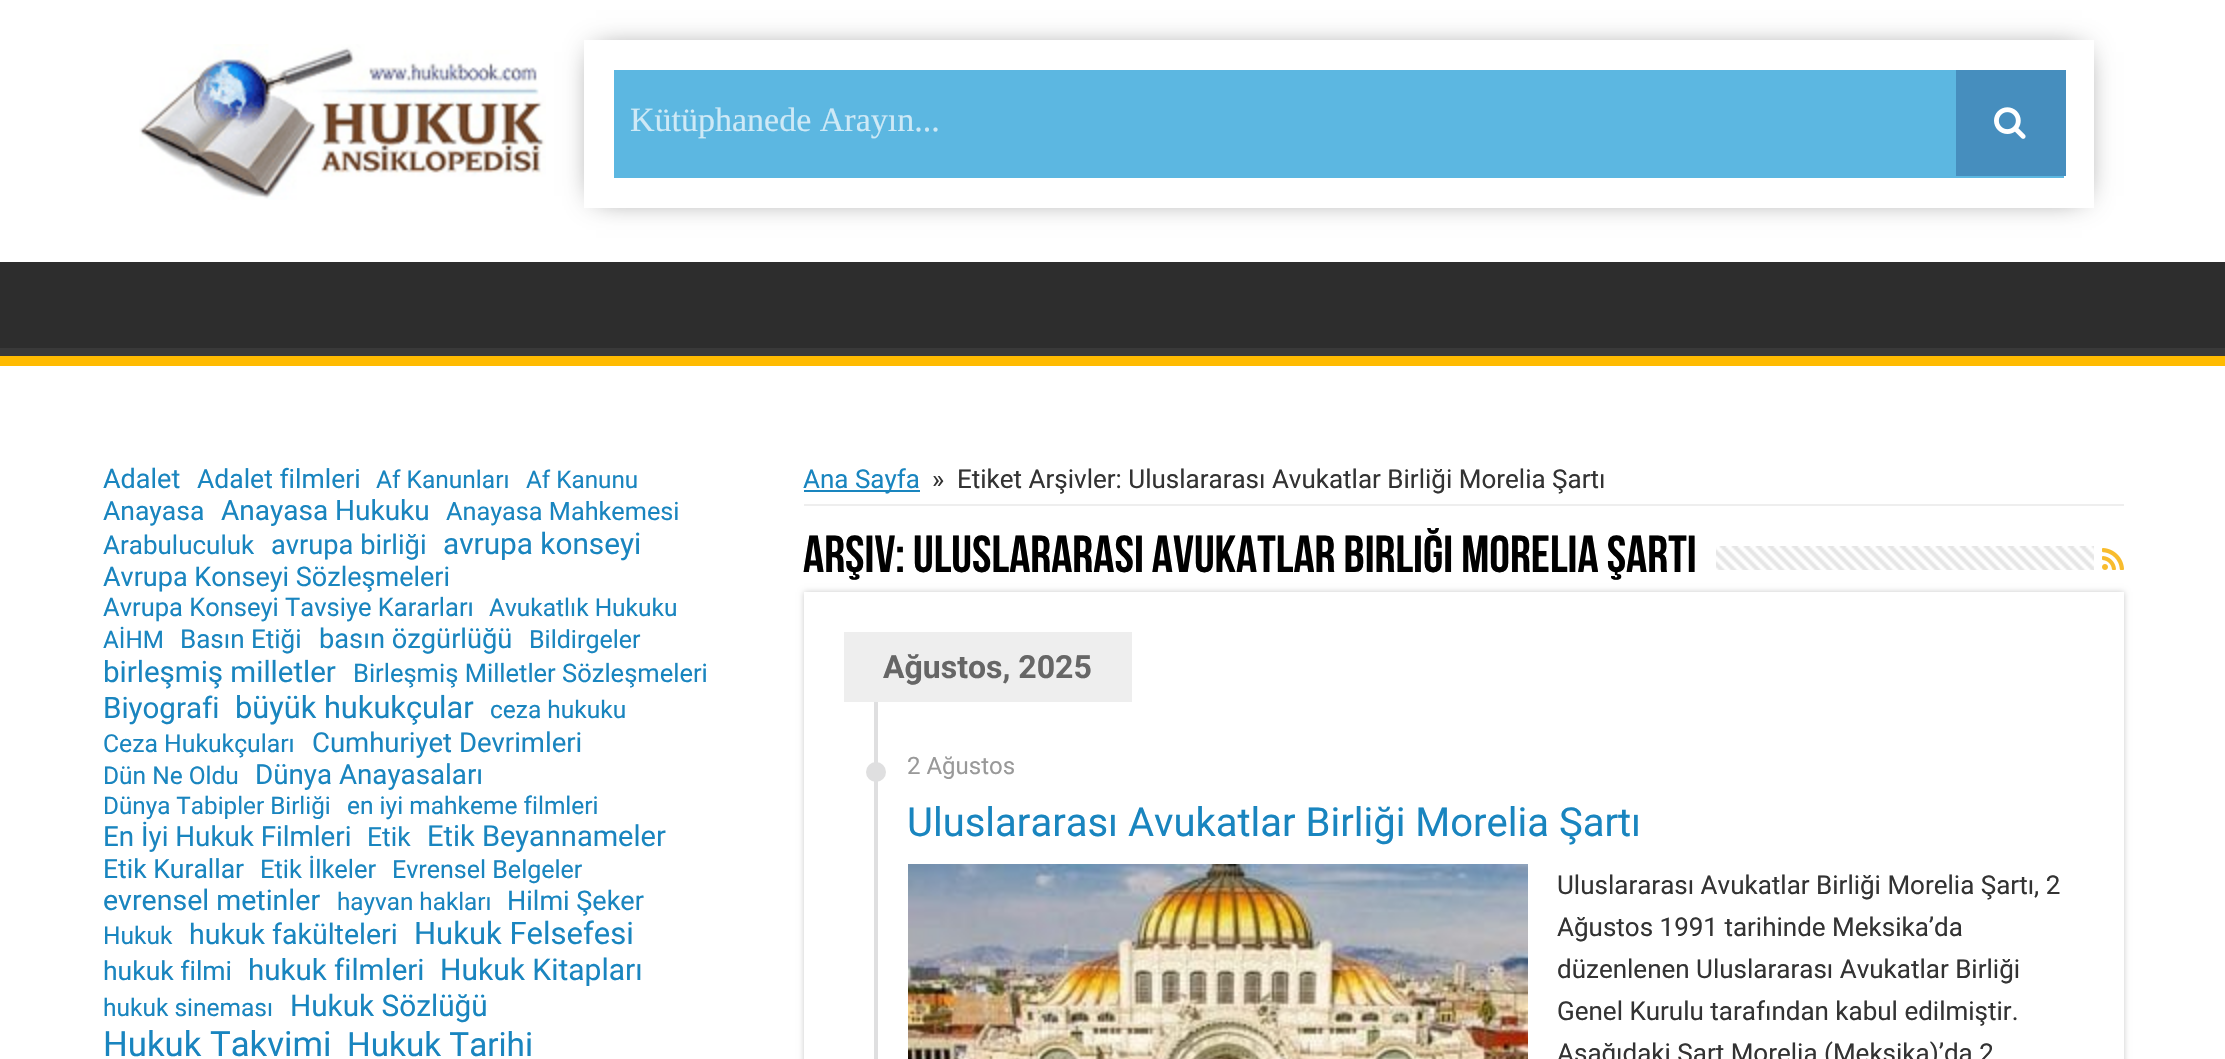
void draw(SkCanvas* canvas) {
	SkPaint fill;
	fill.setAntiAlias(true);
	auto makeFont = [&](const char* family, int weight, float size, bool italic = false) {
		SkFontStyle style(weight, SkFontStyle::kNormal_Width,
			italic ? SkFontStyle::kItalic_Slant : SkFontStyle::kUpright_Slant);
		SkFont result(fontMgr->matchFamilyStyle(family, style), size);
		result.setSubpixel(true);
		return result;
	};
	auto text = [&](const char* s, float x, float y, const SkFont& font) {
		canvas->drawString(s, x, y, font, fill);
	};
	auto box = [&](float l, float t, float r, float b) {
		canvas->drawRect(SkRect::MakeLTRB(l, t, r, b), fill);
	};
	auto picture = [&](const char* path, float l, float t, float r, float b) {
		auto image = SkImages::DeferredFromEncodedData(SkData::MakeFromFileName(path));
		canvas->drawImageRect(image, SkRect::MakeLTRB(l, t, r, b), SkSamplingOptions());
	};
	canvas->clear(0xFFFFFFFF);
	picture("image0.png", 139, 44, 546, 200);
	fill.setColor(0xA1000000);
	fill.setMaskFilter(SkMaskFilter::MakeBlur(kNormal_SkBlurStyle, 14));
	canvas->drawRect(SkRect::MakeLTRB(596, 52, 2082, 196), fill);
	fill.setMaskFilter(nullptr);
	fill.setColor(0xFF5CB7E1);
	box(614, 70, 2064, 178);
	fill.setStyle(SkPaint::kStroke_Style);
	fill.setStrokeWidth(30);
	fill.setColor(0xFFFFFFFF);
	canvas->drawPath(SkPathBuilder().moveTo(599, 55).lineTo(2079, 55).lineTo(2079, 193).lineTo(599, 193).close().detach(), fill);
	fill.setStyle(SkPaint::kFill_Style);
	fill.setColor(0xFF468EBE);
	box(1956, 70, 2066, 176);
	picture("image1.png", 1994, 107, 2026, 139);
	fill.setColor(0xFF2D2D2D);
	box(0, 262, 2225, 348);
	canvas->save();
	canvas->clipRect(SkRect::MakeLTRB(0, 262, 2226, 356));
	fill.setColor(0xFF393939);
	canvas->drawPath(SkPathBuilder(SkPathFillType::kEvenOdd).moveTo(-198, 64).lineTo(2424, 64).lineTo(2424, 554).lineTo(-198, 554).close().moveTo(-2, 250).lineTo(2224, 250).cubicTo(2225, 250, 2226, 251, 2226, 252).lineTo(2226, 346).cubicTo(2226, 347, 2225, 348, 2224, 348).lineTo(-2, 348).cubicTo(-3, 348, -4, 347, -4, 346).lineTo(-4, 252).cubicTo(-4, 251, -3, 250, -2, 250).close().detach(), fill);
	canvas->restore();
	fill.setColor(0xFFFFBB01);
	box(0, 356, 2225, 366);
	fill.setColor(0xFFEEEEEE);
	box(804, 504, 2124, 506);
	fill.setColor(0xFF1985BF);
	box(804, 490, 920, 492);
	picture("image2.png", 1716, 546, 2094, 570);
	picture("image3.png", 2102, 548, 2124, 570);
	canvas->save();
	canvas->clipPath(SkPathBuilder(SkPathFillType::kEvenOdd).moveTo(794, 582).lineTo(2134, 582).lineTo(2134, 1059).lineTo(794, 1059).close().moveTo(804, 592).lineTo(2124, 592).lineTo(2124, 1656).lineTo(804, 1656).close().detach(), true);
	fill.setColor(0xFFCACACA);
	fill.setMaskFilter(SkMaskFilter::MakeBlur(kNormal_SkBlurStyle, 3));
	canvas->drawRect(SkRect::MakeLTRB(804, 592, 2124, 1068), fill);
	fill.setMaskFilter(nullptr);
	canvas->restore();
	fill.setColor(0xFFEEEEEE);
	box(844, 632, 1132, 702);
	fill.setColor(0xFFDFDFE0);
	box(874, 702, 878, 1059);
	canvas->drawCircle(876, 772, 10, fill);
	picture("image4.png", 908, 864, 1528, 1059);
	auto font1 = makeFont("Liberation Serif", 400, 34);
	fill.setColor(0xFFCEE9F6);
	text("Kütüphanede Arayın...", 630, 131, font1);
	auto font2 = makeFont("Roboto", 400, 27);
	fill.setColor(0xFF1985BF);
	text("Adalet", 103, 488, font2);
	auto font3 = makeFont("Roboto", 400, 26.5f);
	text("Adalet filmleri", 197, 488, font3);
	auto font4 = makeFont("Roboto", 400, 24.5f);
	text("Af Kanunları", 376, 488, font4);
	auto font5 = makeFont("Roboto", 400, 24.25f);
	text("Af Kanunu", 526, 488, font5);
	text("Anayasa", 103, 520, font3);
	auto font6 = makeFont("Roboto", 400, 28);
	text("Anayasa Hukuku", 221, 520, font6);
	auto font7 = makeFont("Roboto", 400, 25.25f);
	text("Anayasa Mahkemesi", 446, 520, font7);
	auto font8 = makeFont("Roboto", 400, 26);
	text("Arabuluculuk", 103, 554, font8);
	auto font9 = makeFont("Roboto", 400, 27.25f);
	text("avrupa birliği", 271, 554, font9);
	auto font10 = makeFont("Roboto", 400, 29.75f);
	text("avrupa konseyi", 443, 554, font10);
	text("Avrupa Konseyi Sözleşmeleri", 103, 586, font2);
	auto font11 = makeFont("Roboto", 400, 25.5f);
	text("Avrupa Konseyi Tavsiye Kararları", 103, 616, font11);
	text("Avukatlık Hukuku", 489, 616, font4);
	text("AİHM", 103, 648, font5);
	text("Basın Etiği", 180, 648, font8);
	text("basın özgürlüğü", 319, 648, font9);
	auto font12 = makeFont("Roboto", 400, 25);
	text("Bildirgeler", 529, 648, font12);
	auto font13 = makeFont("Roboto", 400, 29.5f);
	text("birleşmiş milletler", 103, 682, font13);
	text("Birleşmiş Milletler Sözleşmeleri", 353, 682, font11);
	text("Biyografi", 103, 718, font13);
	auto font14 = makeFont("Roboto", 400, 30.75f);
	text("büyük hukukçular", 235, 718, font14);
	text("ceza hukuku", 490, 718, font4);
	auto font15 = makeFont("Roboto", 400, 24.75f);
	text("Ceza Hukukçuları", 103, 752, font15);
	auto font16 = makeFont("Roboto", 400, 27.5f);
	text("Cumhuriyet Devrimleri", 312, 752, font16);
	text("Dün Ne Oldu", 103, 784, font4);
	auto font17 = makeFont("Roboto", 400, 27.75f);
	text("Dünya Anayasaları", 255, 784, font17);
	text("Dünya Tabipler Birliği", 103, 814, font5);
	text("en iyi mahkeme filmleri", 347, 814, font4);
	text("En İyi Hukuk Filmleri", 103, 846, font17);
	text("Etik", 367, 846, font3);
	auto font18 = makeFont("Roboto", 400, 29);
	text("Etik Beyannameler", 427, 846, font18);
	text("Etik Kurallar", 103, 878, font3);
	text("Etik İlkeler", 260, 878, font11);
	text("Evrensel Belgeler", 392, 878, font12);
	auto font19 = makeFont("Roboto", 400, 28.5f);
	text("evrensel metinler", 103, 910, font19);
	text("hayvan hakları", 337, 910, font5);
	text("Hilmi Şeker", 507, 910, font2);
	text("Hukuk", 103, 944, font4);
	text("hukuk fakülteleri", 189, 944, font19);
	auto font20 = makeFont("Roboto", 400, 31);
	text("Hukuk Felsefesi", 414, 944, font20);
	text("hukuk filmi", 103, 980, font3);
	text("hukuk filmleri", 248, 980, font13);
	auto font21 = makeFont("Roboto", 400, 30);
	text("Hukuk Kitapları", 440, 980, font21);
	text("hukuk sineması", 103, 1016, font4);
	text("Hukuk Sözlüğü", 290, 1016, font10);
	auto font22 = makeFont("Roboto", 400, 34.75f);
	text("Hukuk Takvimi", 103, 1056, font22);
	auto font23 = makeFont("Roboto", 400, 33.25f);
	text("Hukuk Tarihi", 347, 1056, font23);
	text("Ana Sayfa", 803, 488, font8);
	fill.setColor(0xFF333333);
	text("»", 932, 488, font8);
	text("Etiket Arşivler: Uluslararası Avukatlar Birliği Morelia Şartı", 957, 488, font8);
	auto font24 = makeFont("Bebas Neue", 700, 52);
	fill.setColor(0xFF000000);
	text("Arşiv: Uluslararası Avukatlar Birliği Morelia Şartı", 803, 572, font24);
	auto font25 = makeFont("Roboto", 700, 32);
	fill.setColor(0xFF666666);
	text("Ağustos, 2025", 883, 678, font25);
	auto font26 = makeFont("Roboto", 400, 24);
	fill.setColor(0xFF999999);
	text("2 Ağustos", 907, 774, font26);
	auto font27 = makeFont("Roboto", 400, 40);
	fill.setColor(0xFF1985BF);
	text("Uluslararası Avukatlar Birliği Morelia Şartı", 907, 836, font27);
	fill.setColor(0xFF333333);
	text("Uluslararası Avukatlar Birliği Morelia Şartı, 2", 1557, 894, font8);
	text("Ağustos 1991 tarihinde Meksika’da", 1557, 936, font8);
	text("düzenlenen Uluslararası Avukatlar Birliği", 1557, 978, font8);
	text("Genel Kurulu tarafından kabul edilmiştir.", 1557, 1020, font8);
	text("Aşağıdaki Şart Morelia (Meksika)’da 2", 1557, 1062, font8);
}
